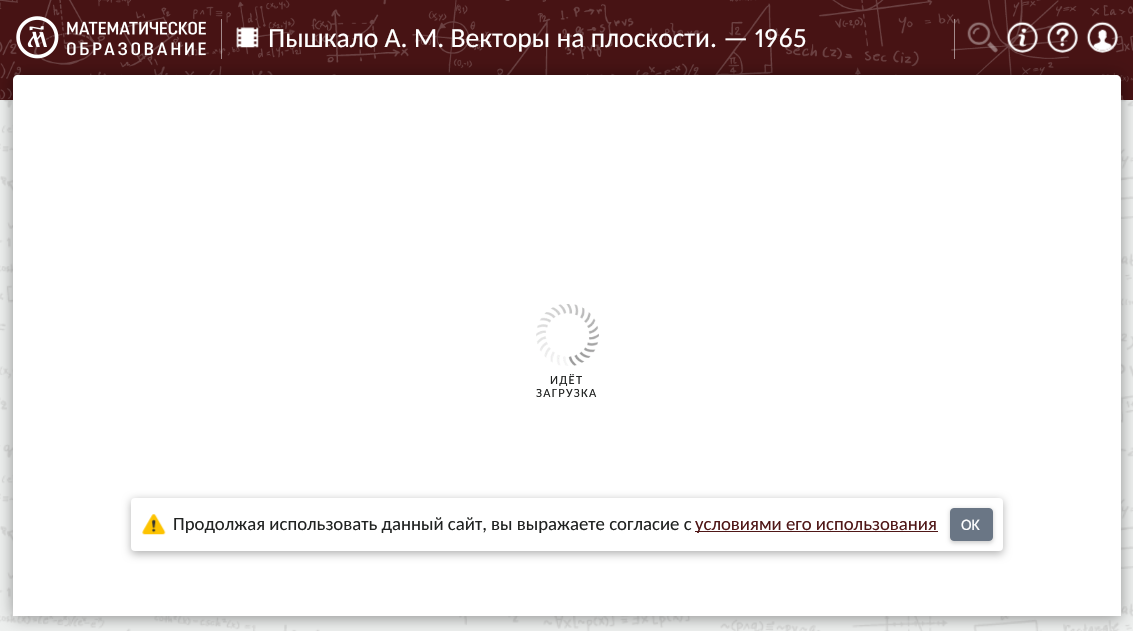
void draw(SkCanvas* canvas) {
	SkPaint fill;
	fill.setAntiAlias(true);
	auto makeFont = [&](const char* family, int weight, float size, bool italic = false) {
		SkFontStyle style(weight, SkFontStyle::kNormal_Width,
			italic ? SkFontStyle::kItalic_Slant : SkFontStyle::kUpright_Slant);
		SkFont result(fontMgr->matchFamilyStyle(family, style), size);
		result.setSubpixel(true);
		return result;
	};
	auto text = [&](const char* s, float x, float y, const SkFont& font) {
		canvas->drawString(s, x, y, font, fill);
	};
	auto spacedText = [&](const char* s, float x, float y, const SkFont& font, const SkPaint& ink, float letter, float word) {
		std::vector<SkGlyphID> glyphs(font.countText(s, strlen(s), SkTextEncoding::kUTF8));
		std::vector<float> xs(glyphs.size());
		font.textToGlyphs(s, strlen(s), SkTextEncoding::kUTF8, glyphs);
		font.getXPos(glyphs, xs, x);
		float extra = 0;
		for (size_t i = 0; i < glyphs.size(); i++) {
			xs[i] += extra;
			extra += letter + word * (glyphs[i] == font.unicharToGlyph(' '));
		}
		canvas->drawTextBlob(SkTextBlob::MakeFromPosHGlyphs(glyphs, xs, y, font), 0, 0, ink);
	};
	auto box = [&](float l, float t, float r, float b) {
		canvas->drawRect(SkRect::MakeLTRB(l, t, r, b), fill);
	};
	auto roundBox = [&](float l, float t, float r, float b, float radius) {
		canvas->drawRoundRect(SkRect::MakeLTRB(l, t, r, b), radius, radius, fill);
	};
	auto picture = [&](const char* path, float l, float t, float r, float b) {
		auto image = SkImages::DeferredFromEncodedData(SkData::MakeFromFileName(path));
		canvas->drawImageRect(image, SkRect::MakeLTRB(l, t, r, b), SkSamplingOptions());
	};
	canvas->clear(0xFFFFFFFF);
	picture("image0.png", 0, 100, 1133, 631);
	picture("image1.png", 0, 0, 1133, 100);
	picture("image2.png", 16, 16, 206, 59);
	fill.setColor(0x80FFFFFF);
	box(954, 19, 955, 59);
	box(221, 19, 222, 59);
	picture("image3.png", 236, 27, 259, 48);
	picture("image4.png", 967, 22, 998, 53);
	picture("image5.png", 1006, 21, 1038, 53);
	picture("image6.png", 1046, 21, 1078, 53);
	fill.setColor(0x66000000);
	fill.setMaskFilter(SkMaskFilter::MakeBlur(kNormal_SkBlurStyle, 8));
	canvas->drawRoundRect(SkRect::MakeLTRB(13, 76, 1121, 618), 5, 5, fill);
	fill.setMaskFilter(nullptr);
	picture("image7.png", 1086, 21, 1118, 53);
	fill.setColor(0xFFFFFFFF);
	canvas->drawPath(SkPathBuilder().moveTo(18, 75).lineTo(1116, 75).cubicTo(1119, 75, 1121, 77, 1121, 80).lineTo(1121, 616).lineTo(13, 616).lineTo(13, 80).cubicTo(13, 77, 15, 75, 18, 75).close().detach(), fill);
	picture("image8.png", 536, 304, 599, 366);
	fill.setColor(0x4D000000);
	fill.setMaskFilter(SkMaskFilter::MakeBlur(kNormal_SkBlurStyle, 4));
	canvas->drawRoundRect(SkRect::MakeLTRB(131, 500, 1003, 554), 4, 4, fill);
	fill.setMaskFilter(nullptr);
	fill.setColor(0xFFFFFFFF);
	roundBox(131, 498, 1003, 551, 4);
	picture("image9.png", 142, 514, 166, 535);
	fill.setColor(0xFF4F1717);
	box(695, 531, 938, 532);
	fill.setColor(0x33000000);
	fill.setMaskFilter(SkMaskFilter::MakeBlur(kNormal_SkBlurStyle, 2));
	canvas->drawRoundRect(SkRect::MakeLTRB(950, 509, 993, 543), 4, 4, fill);
	fill.setMaskFilter(nullptr);
	fill.setColor(0xFF6A7685);
	canvas->drawRoundRect(SkRect::MakeLTRB(950.5f, 508.5f, 992.5f, 540.5f), 3.5f, 3.5f, fill);
	fill.setStyle(SkPaint::kStroke_Style);
	fill.setStrokeWidth(1);
	canvas->drawRoundRect(SkRect::MakeLTRB(950.5f, 508.5f, 992.5f, 540.5f), 3.5f, 3.5f, fill);
	auto font1 = makeFont("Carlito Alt", 400, 27.6f);
	fill.setStyle(SkPaint::kFill_Style);
	fill.setColor(0xFFFFFFFF);
	text("Пышкало А. М. Векторы на плоскости. — 1965", 268, 47, font1);
	auto font2 = makeFont("Carlito", 400, 12.5f);
	fill.setColor(0xFF212322);
	spacedText("ИДЁТ", 550, 384, font2, fill, 1.25f, 0);
	spacedText("ЗАГРУЗКА", 536, 397, font2, fill, 1.25f, 0);
	auto font3 = makeFont("Carlito", 400, 18.75f);
	text("Продолжая использовать данный сайт, вы выражаете согласие с", 173, 530, font3);
	fill.setColor(0xFF4F1717);
	text("условиями его использования", 695, 530, font3);
	auto font4 = makeFont("Carlito", 400, 16);
	fill.setColor(0xFFFFFFFF);
	text("OK", 961, 530, font4);
}
